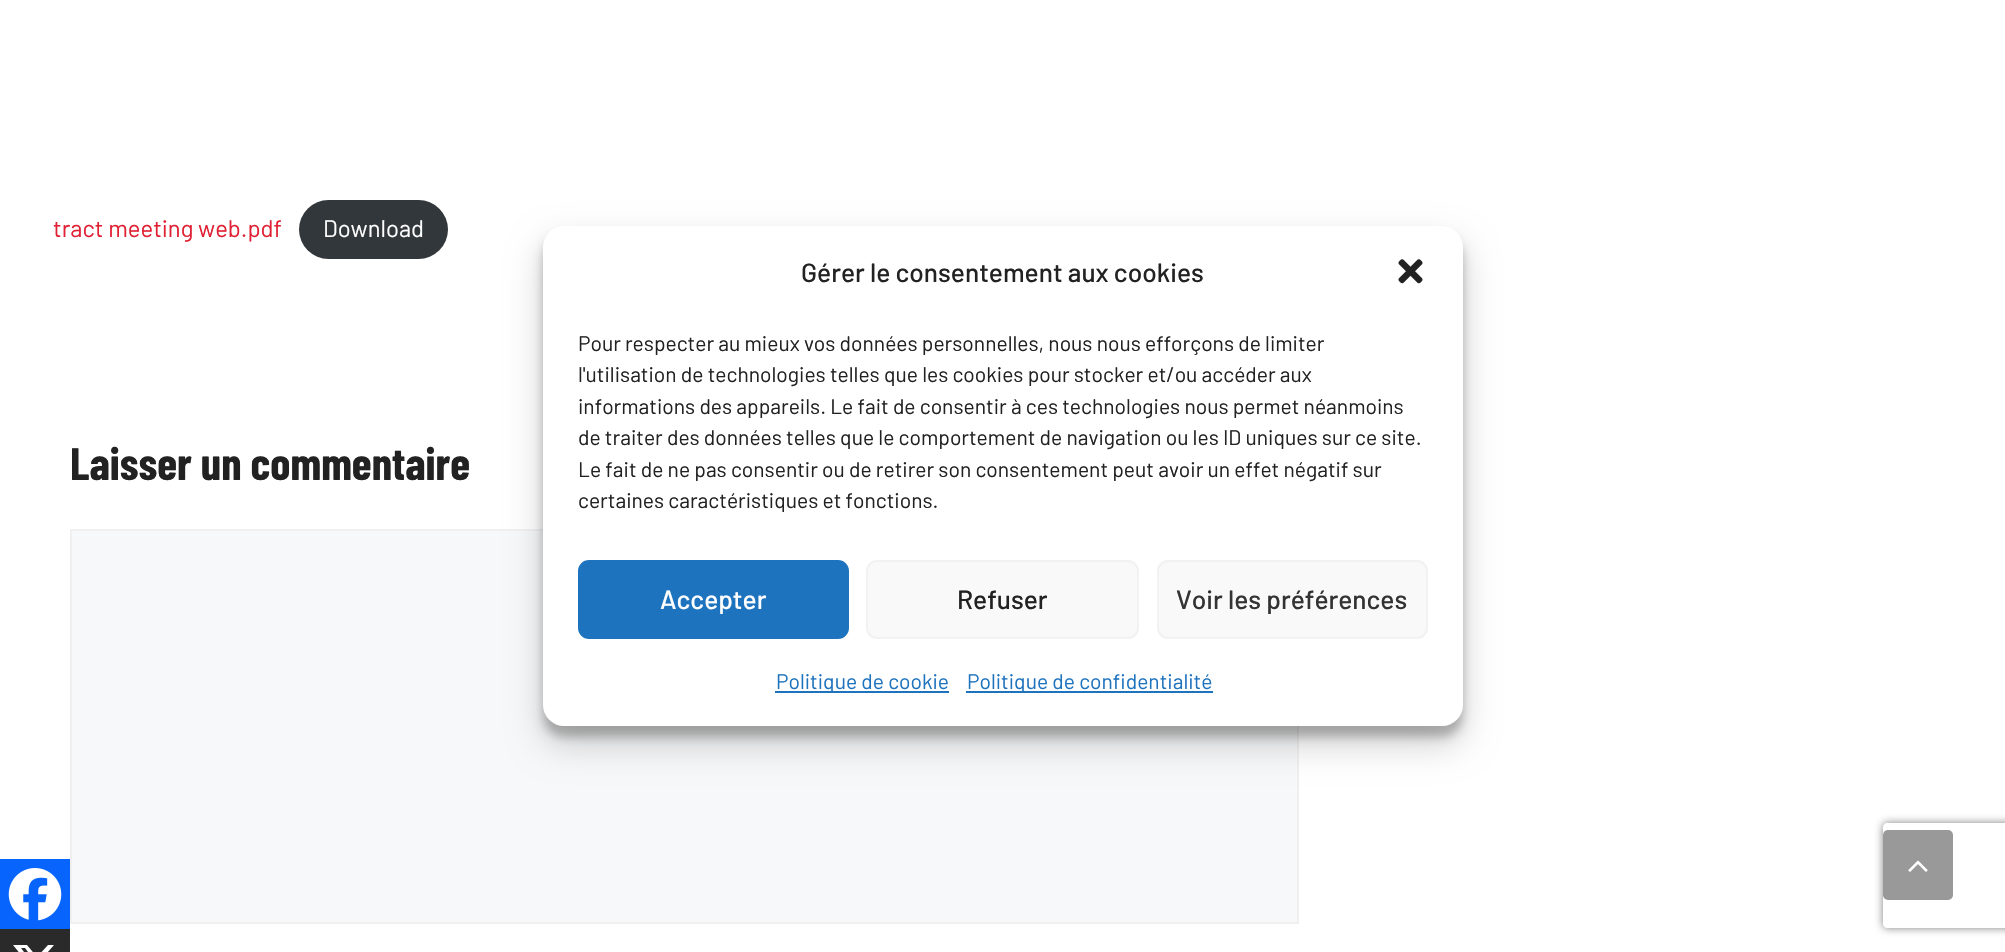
void draw(SkCanvas* canvas) {
	SkPaint fill;
	fill.setAntiAlias(true);
	auto makeFont = [&](const char* family, int weight, float size, bool italic = false) {
		SkFontStyle style(weight, SkFontStyle::kNormal_Width,
			italic ? SkFontStyle::kItalic_Slant : SkFontStyle::kUpright_Slant);
		SkFont result(fontMgr->matchFamilyStyle(family, style), size);
		result.setSubpixel(true);
		return result;
	};
	auto text = [&](const char* s, float x, float y, const SkFont& font) {
		canvas->drawString(s, x, y, font, fill);
	};
	auto box = [&](float l, float t, float r, float b) {
		canvas->drawRect(SkRect::MakeLTRB(l, t, r, b), fill);
	};
	auto roundBox = [&](float l, float t, float r, float b, float radius) {
		canvas->drawRoundRect(SkRect::MakeLTRB(l, t, r, b), radius, radius, fill);
	};
	auto picture = [&](const char* path, float l, float t, float r, float b) {
		auto image = SkImages::DeferredFromEncodedData(SkData::MakeFromFileName(path));
		canvas->drawImageRect(image, SkRect::MakeLTRB(l, t, r, b), SkSamplingOptions());
	};
	canvas->clear(0xFFFFFFFF);
	fill.setColor(0xFF32373C);
	roundBox(299, 200, 448, 259, 29.5f);
	fill.setColor(0xFF0765FE);
	box(0, 859, 70, 929);
	picture("image0.png", 8, 868, 62, 921);
	fill.setColor(0xFF2A2A2A);
	box(0, 929, 70, 952);
	fill.setColor(0xFFFFFFFF);
	canvas->drawPath(SkPathBuilder().moveTo(48, 945).lineTo(54, 945).lineTo(40, 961).lineTo(57, 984).lineTo(43, 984).lineTo(33, 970).lineTo(21, 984).lineTo(14, 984).lineTo(30, 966).lineTo(13, 945).lineTo(27, 945).lineTo(37, 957).close().moveTo(45, 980).lineTo(49, 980).lineTo(25, 948).lineTo(21, 948).close().detach(), fill);
	fill.setColor(0xFFF7F8F9);
	canvas->drawRect(SkRect::MakeLTRB(71, 530, 1298, 923), fill);
	fill.setStyle(SkPaint::kStroke_Style);
	fill.setStrokeWidth(2);
	fill.setColor(0xFFF0F0F0);
	canvas->drawRect(SkRect::MakeLTRB(71, 530, 1298, 923), fill);
	fill.setStyle(SkPaint::kFill_Style);
	fill.setColor(0x3B000000);
	fill.setMaskFilter(SkMaskFilter::MakeBlur(kNormal_SkBlurStyle, 5));
	canvas->drawRoundRect(SkRect::MakeLTRB(543, 236, 1463, 737), 21, 21, fill);
	fill.setMaskFilter(nullptr);
	fill.setColor(0x30000000);
	fill.setMaskFilter(SkMaskFilter::MakeBlur(kNormal_SkBlurStyle, 17.5f));
	canvas->drawRoundRect(SkRect::MakeLTRB(543, 243, 1463, 744), 21, 21, fill);
	fill.setMaskFilter(nullptr);
	fill.setColor(0xFFFFFFFF);
	roundBox(543, 226, 1463, 726, 21);
	picture("image1.png", 1398, 259, 1423, 284);
	fill.setColor(0xFF1E73BE);
	canvas->drawRoundRect(SkRect::MakeLTRB(579, 561, 848, 638), 10, 10, fill);
	fill.setStyle(SkPaint::kStroke_Style);
	canvas->drawRoundRect(SkRect::MakeLTRB(579, 561, 848, 638), 10, 10, fill);
	fill.setStyle(SkPaint::kFill_Style);
	fill.setColor(0xFFF9F9F9);
	canvas->drawRoundRect(SkRect::MakeLTRB(867, 561, 1138, 638), 10, 10, fill);
	fill.setStyle(SkPaint::kStroke_Style);
	fill.setColor(0xFFF2F2F2);
	canvas->drawRoundRect(SkRect::MakeLTRB(867, 561, 1138, 638), 10, 10, fill);
	fill.setStyle(SkPaint::kFill_Style);
	fill.setColor(0xFFF9F9F9);
	canvas->drawRoundRect(SkRect::MakeLTRB(1158, 561, 1427, 638), 10, 10, fill);
	fill.setStyle(SkPaint::kStroke_Style);
	fill.setColor(0xFFF2F2F2);
	canvas->drawRoundRect(SkRect::MakeLTRB(1158, 561, 1427, 638), 10, 10, fill);
	fill.setStyle(SkPaint::kFill_Style);
	fill.setColor(0xFF1E73BE);
	box(775, 691, 949, 693);
	box(966, 691, 1213, 693);
	canvas->save();
	canvas->clipPath(SkPathBuilder(SkPathFillType::kEvenOdd).moveTo(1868, 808).lineTo(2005, 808).lineTo(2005, 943).lineTo(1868, 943).close().moveTo(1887, 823).lineTo(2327, 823).cubicTo(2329, 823, 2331, 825, 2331, 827).lineTo(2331, 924).cubicTo(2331, 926, 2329, 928, 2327, 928).lineTo(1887, 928).cubicTo(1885, 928, 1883, 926, 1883, 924).lineTo(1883, 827).cubicTo(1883, 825, 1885, 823, 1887, 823).close().detach(), true);
	fill.setColor(0xFF808080);
	fill.setMaskFilter(SkMaskFilter::MakeBlur(kNormal_SkBlurStyle, 4.5f));
	canvas->drawRoundRect(SkRect::MakeLTRB(1883, 823, 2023, 928), 4, 4, fill);
	fill.setMaskFilter(nullptr);
	canvas->restore();
	fill.setColor(0xFF999999);
	roundBox(1883, 830, 1953, 900, 5);
	picture("image2.png", 1908, 860, 1928, 872);
	auto font1 = makeFont("Barlow", 400, 23.75f);
	fill.setColor(0xFFE02033);
	text("tract meeting web.pdf", 53, 237, font1);
	fill.setColor(0xFFFFFFFF);
	text("Download", 323, 237, font1);
	auto font2 = makeFont("Barlow Condensed", 700, 45.5f);
	fill.setColor(0xFF222222);
	text("Laisser un commentaire", 70, 480, font2);
	auto font3 = makeFont("Barlow", 500, 26.25f);
	text("Gérer le consentement aux cookies", 801, 282, font3);
	auto font4 = makeFont("Barlow", 400, 21);
	text("Pour respecter au mieux vos données personnelles, nous nous efforçons de limiter", 578, 351, font4);
	text("l'utilisation de technologies telles que les cookies pour stocker et/ou accéder aux", 578, 382, font4);
	text("informations des appareils. Le fait de consentir à ces technologies nous permet néanmoins", 578, 414, font4);
	text("de traiter des données telles que le comportement de navigation ou les ID uniques sur ce site.", 578, 445, font4);
	text("Le fait de ne pas consentir ou de retirer son consentement peut avoir un effet négatif sur", 578, 477, font4);
	text("certaines caractéristiques et fonctions.", 578, 508, font4);
	fill.setColor(0xFFFFFFFF);
	text("Accepter", 660, 609, font3);
	fill.setColor(0xFF222222);
	text("Refuser", 957, 609, font3);
	fill.setColor(0xFF333333);
	text("Voir les préférences", 1176, 609, font3);
	fill.setColor(0xFF1E73BE);
	text("Politique de cookie", 776, 689, font4);
	text("Politique de confidentialité", 967, 689, font4);
}
